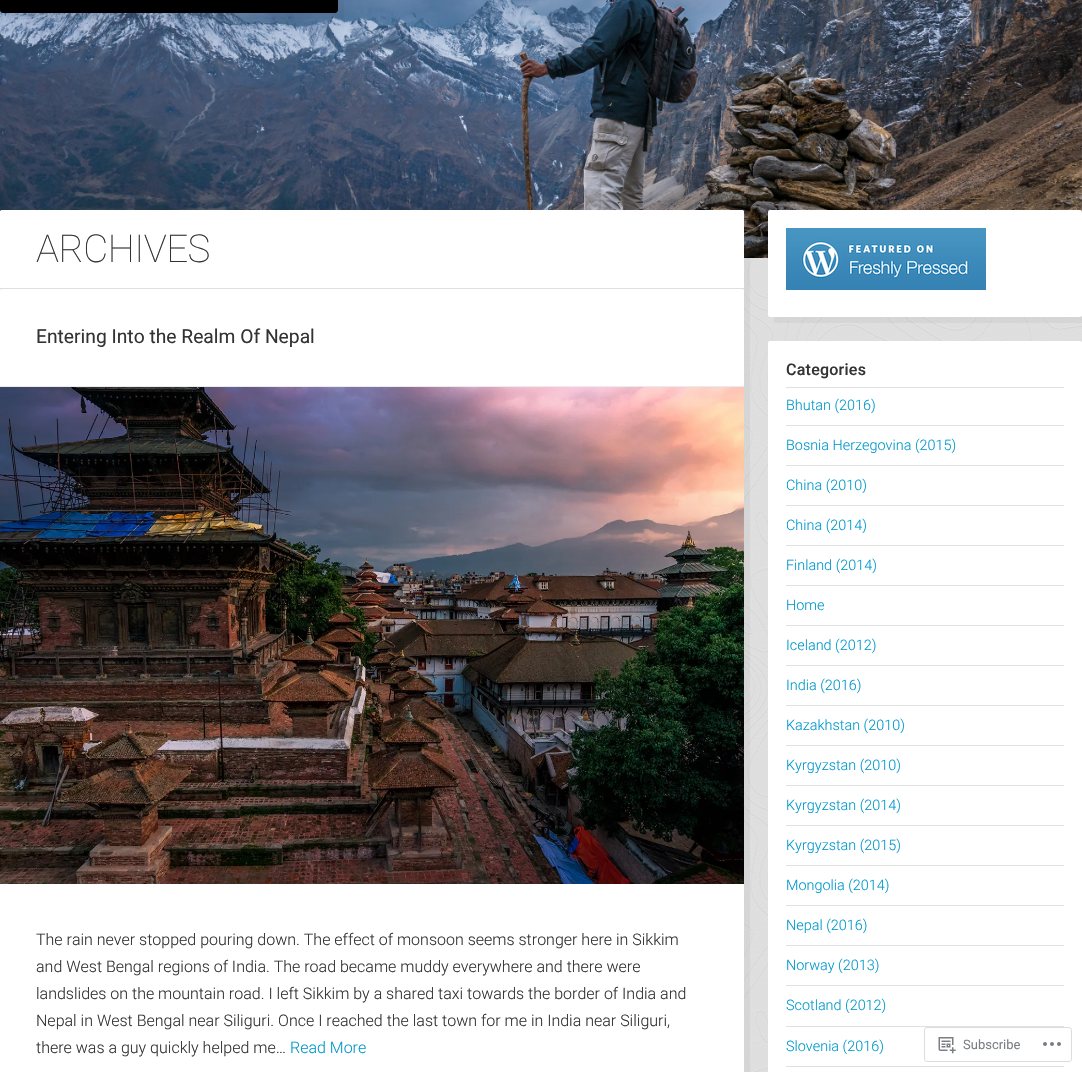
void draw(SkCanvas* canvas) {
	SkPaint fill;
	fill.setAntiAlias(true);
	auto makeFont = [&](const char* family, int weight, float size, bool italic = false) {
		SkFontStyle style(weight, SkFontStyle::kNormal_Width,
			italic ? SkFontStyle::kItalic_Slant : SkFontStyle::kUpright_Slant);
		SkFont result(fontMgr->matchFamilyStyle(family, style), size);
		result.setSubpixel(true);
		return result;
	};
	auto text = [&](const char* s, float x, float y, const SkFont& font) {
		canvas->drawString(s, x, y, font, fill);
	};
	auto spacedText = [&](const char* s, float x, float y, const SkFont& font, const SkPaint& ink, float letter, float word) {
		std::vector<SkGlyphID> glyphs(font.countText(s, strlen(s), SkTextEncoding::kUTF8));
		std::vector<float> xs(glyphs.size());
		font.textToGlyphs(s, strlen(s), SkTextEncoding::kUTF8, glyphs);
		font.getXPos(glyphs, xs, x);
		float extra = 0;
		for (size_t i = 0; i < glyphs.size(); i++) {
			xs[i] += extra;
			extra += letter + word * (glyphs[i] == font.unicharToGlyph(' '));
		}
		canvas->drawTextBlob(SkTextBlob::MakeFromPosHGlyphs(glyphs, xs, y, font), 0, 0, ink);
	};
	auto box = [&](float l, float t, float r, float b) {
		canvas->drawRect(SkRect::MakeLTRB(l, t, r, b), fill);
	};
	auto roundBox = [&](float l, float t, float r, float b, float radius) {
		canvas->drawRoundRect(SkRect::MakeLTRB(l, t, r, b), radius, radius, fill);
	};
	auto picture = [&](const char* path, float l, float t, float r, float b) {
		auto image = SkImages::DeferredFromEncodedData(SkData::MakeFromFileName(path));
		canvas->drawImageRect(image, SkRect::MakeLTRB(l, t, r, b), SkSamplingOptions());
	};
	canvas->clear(0xFFFFFFFF);
	picture("image0.png", 0, 258, 1082, 1072);
	picture("image1.png", 0, 0, 1082, 258);
	fill.setColor(0x0A000000);
	canvas->drawPath(SkPathBuilder().moveTo(6, 13).lineTo(6, 16).cubicTo(6, 18, 7, 19, 9, 19).lineTo(341, 19).cubicTo(343, 19, 344, 18, 344, 16).lineTo(344, -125).lineTo(338, -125).lineTo(338, 10).cubicTo(338, 12, 337, 13, 335, 13).close().detach(), fill);
	fill.setColor(0xFF000000);
	canvas->drawPath(SkPathBuilder().moveTo(0, -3).lineTo(338, -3).lineTo(338, 10).cubicTo(338, 11.5f, 336.5f, 13, 335, 13).lineTo(3, 13).cubicTo(1.5f, 13, 0, 11.5f, 0, 10).close().detach(), fill);
	fill.setColor(0x0A000000);
	canvas->drawPath(SkPathBuilder().moveTo(6, 289).lineTo(6, 293).cubicTo(6, 294, 7, 295, 8, 295).lineTo(748, 295).cubicTo(749, 295, 750, 294, 750, 293).lineTo(750, 218).cubicTo(750, 217, 749, 216, 748, 216).lineTo(744, 216).lineTo(744, 287).cubicTo(744, 288, 743, 289, 742, 289).close().detach(), fill);
	fill.setColor(0xFFFFFFFF);
	roundBox(0, 210, 744, 289, 2);
	fill.setColor(0x1F000000);
	box(1, 288, 743, 289);
	fill.setColor(0xFFFFFFFF);
	canvas->drawPath(SkPathBuilder().moveTo(2, 210).cubicTo(1, 210, 0, 211, 0, 212).lineTo(0, 287).cubicTo(0, 288, 1, 288, 2, 288).lineTo(742, 288).cubicTo(743, 288, 744, 288, 744, 287).lineTo(744, 212).cubicTo(744, 211, 743, 210, 742, 210).close().detach(), fill);
	fill.setColor(0x0A000000);
	canvas->drawPath(SkPathBuilder().moveTo(6, 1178).lineTo(6, 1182).cubicTo(6, 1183, 7, 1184, 8, 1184).lineTo(748, 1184).cubicTo(749, 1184, 750, 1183, 750, 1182).lineTo(750, 297).cubicTo(750, 296, 749, 295, 748, 295).lineTo(744, 295).lineTo(744, 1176).cubicTo(744, 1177, 743, 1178, 742, 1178).close().detach(), fill);
	fill.setColor(0xFFFFFFFF);
	roundBox(0, 289, 744, 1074, 2);
	canvas->drawPath(SkPathBuilder().moveTo(2, 289).lineTo(742, 289).cubicTo(743, 289, 744, 290, 744, 291).lineTo(744, 387).lineTo(0, 387).lineTo(0, 291).cubicTo(0, 290, 1, 289, 2, 289).close().detach(), fill);
	fill.setColor(0xFFEBEBEB);
	box(0, 386, 744, 387);
	picture("image2.png", 0, 387, 744, 884);
	fill.setColor(0x0A000000);
	canvas->drawPath(SkPathBuilder().moveTo(774, 317).lineTo(774, 321).cubicTo(774, 322, 775, 323, 776, 323).lineTo(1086, 323).cubicTo(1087, 323, 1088, 322, 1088, 321).lineTo(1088, 218).cubicTo(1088, 217, 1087, 216, 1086, 216).lineTo(1082, 216).lineTo(1082, 315).cubicTo(1082, 316, 1081, 317, 1080, 317).close().detach(), fill);
	fill.setColor(0xFFFFFFFF);
	roundBox(768, 210, 1082, 317, 2);
	picture("image3.png", 786, 228, 986, 290);
	roundBox(768, 341, 1082, 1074, 2);
	fill.setColor(0xFFE0E0E0);
	box(786, 387, 1064, 388);
	box(786, 425, 1064, 426);
	box(786, 465, 1064, 466);
	box(786, 505, 1064, 506);
	box(786, 545, 1064, 546);
	box(786, 585, 1064, 586);
	box(786, 625, 1064, 626);
	box(786, 665, 1064, 666);
	box(786, 705, 1064, 706);
	box(786, 745, 1064, 746);
	box(786, 785, 1064, 786);
	box(786, 825, 1064, 826);
	box(786, 865, 1064, 866);
	box(786, 905, 1064, 906);
	box(786, 945, 1064, 946);
	box(786, 985, 1064, 986);
	box(786, 1026, 1064, 1027);
	box(786, 1066, 1064, 1067);
	fill.setStyle(SkPaint::kStroke_Style);
	fill.setStrokeWidth(1);
	fill.setColor(0xFFDDDDDF);
	canvas->drawRoundRect(SkRect::MakeLTRB(924.5f, 1027.5f, 1071.5f, 1061.5f), 2.5f, 2.5f, fill);
	picture("image4.png", 938, 1037, 956, 1054);
	picture("image5.png", 1043, 1042, 1061, 1046);
	auto font1 = makeFont("Roboto", 100, 38.5f);
	fill.setStyle(SkPaint::kFill_Style);
	fill.setColor(0xFF333333);
	spacedText("ARCHIVES", 36, 262, font1, fill, -0.5f, 0);
	auto font2 = makeFont("Roboto", 400, 19.25f);
	text("Entering Into the Realm Of Nepal", 36, 343, font2);
	auto font3 = makeFont("Roboto", 300, 16);
	text("The rain never stopped pouring down. The effect of monsoon seems stronger here in Sikkim", 36, 945, font3);
	text("and West Bengal regions of India. The road became muddy everywhere and there were", 36, 972, font3);
	text("landslides on the mountain road. I left Sikkim by a shared taxi towards the border of India and", 36, 999, font3);
	text("Nepal in West Bengal near Siliguri. Once I reached the last town for me in India near Siliguri,", 36, 1026, font3);
	text("there was a guy quickly helped me…", 36, 1053, font3);
	fill.setColor(0xFF0099CC);
	text("Read More", 290, 1053, font3);
	auto font4 = makeFont("Roboto", 500, 16);
	fill.setColor(0xFF333333);
	spacedText("Categories", 786, 375, font4, fill, 0.25f, 0);
	auto font5 = makeFont("Roboto", 300, 14.4f);
	fill.setColor(0xFF0099CC);
	text("Bhutan (2016)", 786, 410, font5);
	text("Bosnia Herzegovina (2015)", 786, 450, font5);
	text("China (2010)", 786, 490, font5);
	text("China (2014)", 786, 530, font5);
	text("Finland (2014)", 786, 570, font5);
	text("Home", 786, 610, font5);
	text("Iceland (2012)", 786, 650, font5);
	text("India (2016)", 786, 690, font5);
	text("Kazakhstan (2010)", 786, 730, font5);
	text("Kyrgyzstan (2010)", 786, 770, font5);
	text("Kyrgyzstan (2014)", 786, 810, font5);
	text("Kyrgyzstan (2015)", 786, 850, font5);
	text("Mongolia (2014)", 786, 890, font5);
	text("Nepal (2016)", 786, 930, font5);
	text("Norway (2013)", 786, 970, font5);
	text("Scotland (2012)", 786, 1010, font5);
	text("Slovenia (2016)", 786, 1051, font5);
	auto font6 = makeFont("Roboto", 400, 13);
	fill.setColor(0xFF7B7F85);
	text("Subscribe", 963, 1049, font6);
}
